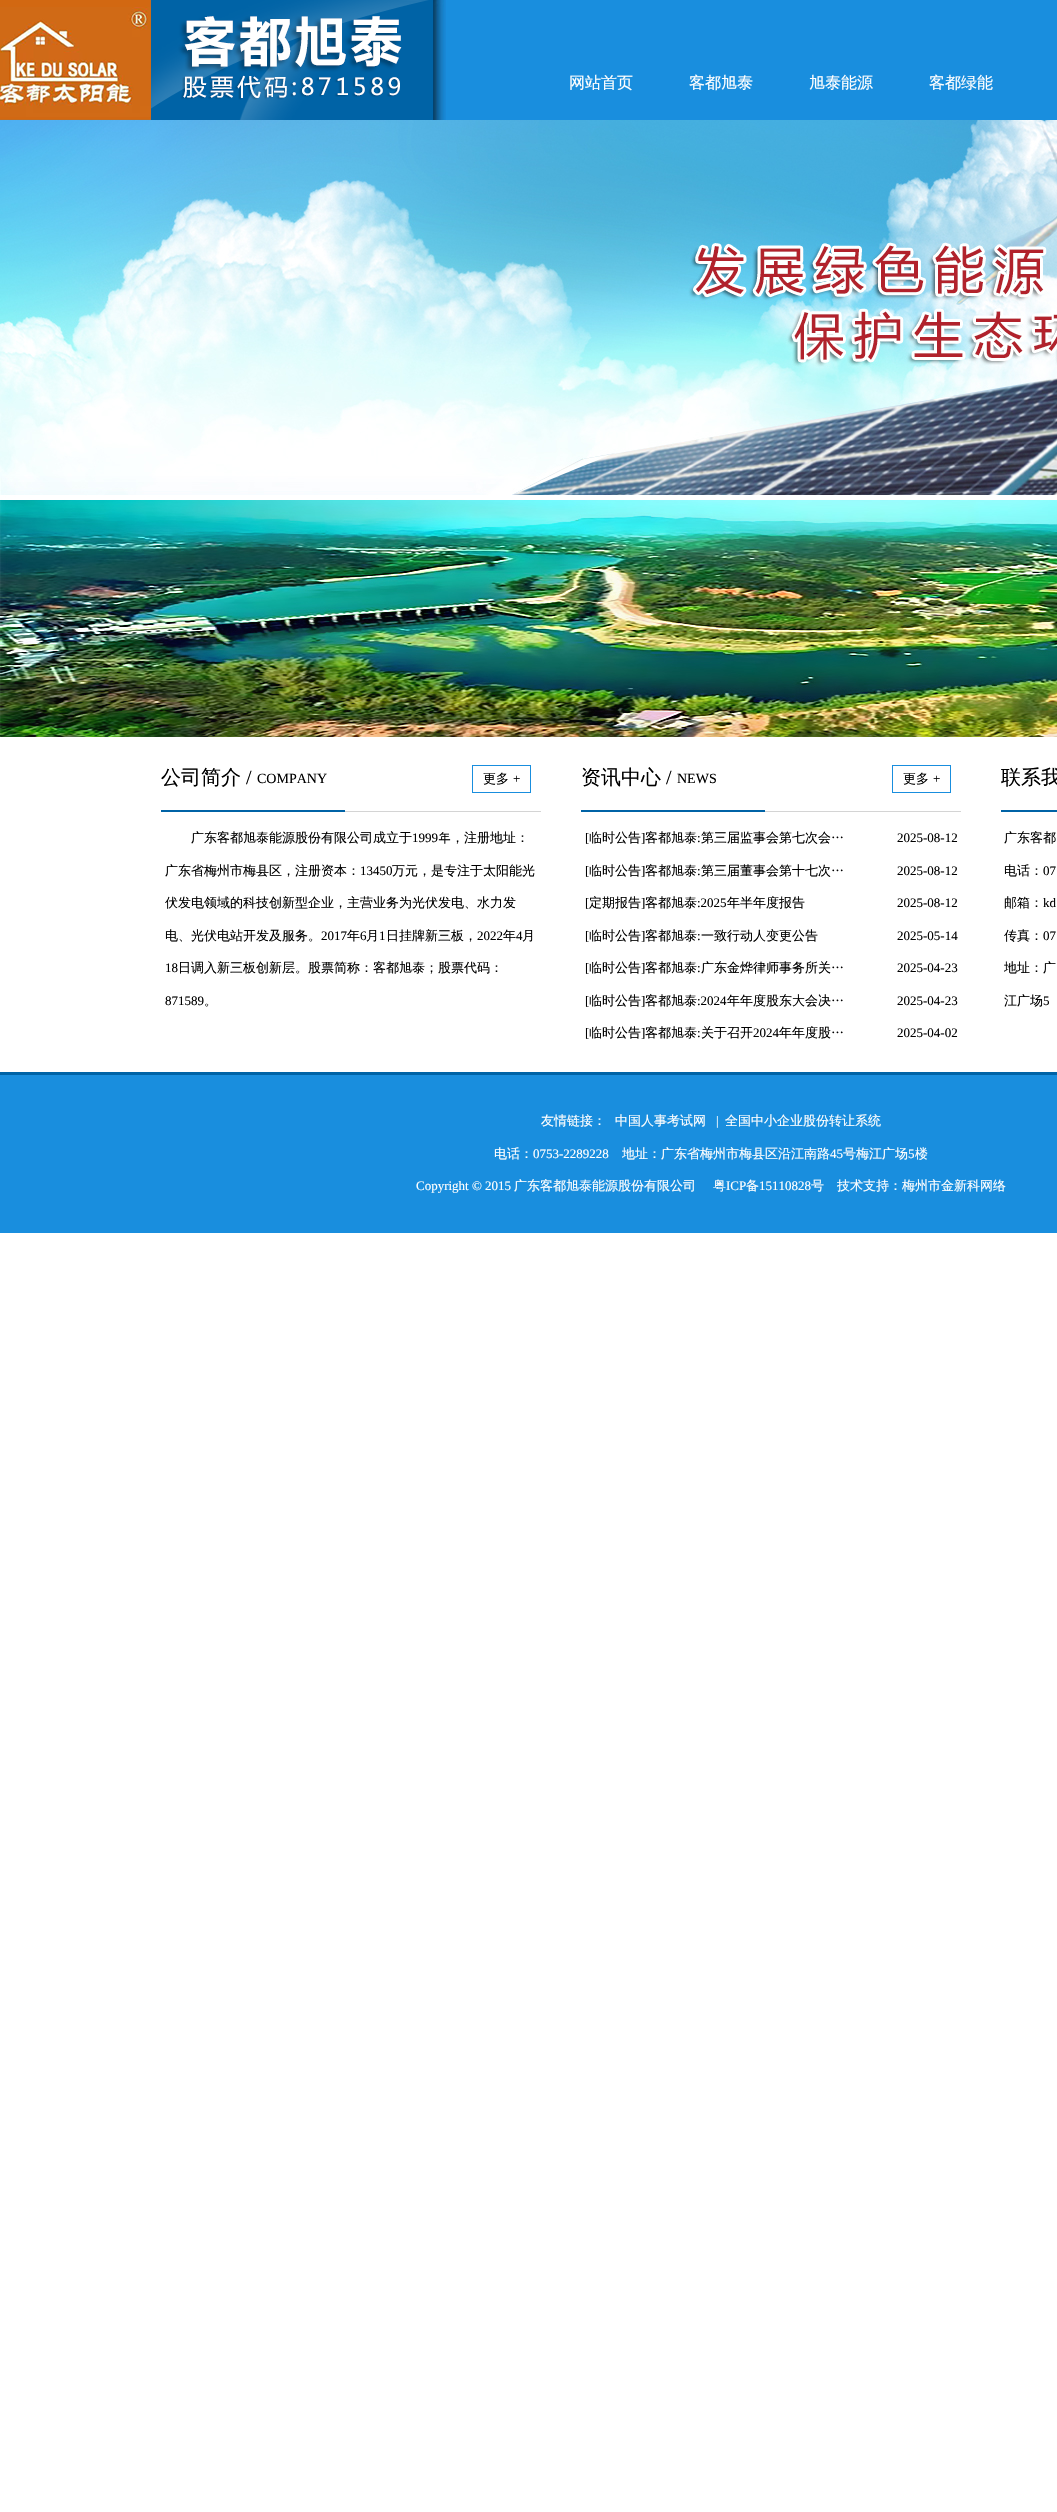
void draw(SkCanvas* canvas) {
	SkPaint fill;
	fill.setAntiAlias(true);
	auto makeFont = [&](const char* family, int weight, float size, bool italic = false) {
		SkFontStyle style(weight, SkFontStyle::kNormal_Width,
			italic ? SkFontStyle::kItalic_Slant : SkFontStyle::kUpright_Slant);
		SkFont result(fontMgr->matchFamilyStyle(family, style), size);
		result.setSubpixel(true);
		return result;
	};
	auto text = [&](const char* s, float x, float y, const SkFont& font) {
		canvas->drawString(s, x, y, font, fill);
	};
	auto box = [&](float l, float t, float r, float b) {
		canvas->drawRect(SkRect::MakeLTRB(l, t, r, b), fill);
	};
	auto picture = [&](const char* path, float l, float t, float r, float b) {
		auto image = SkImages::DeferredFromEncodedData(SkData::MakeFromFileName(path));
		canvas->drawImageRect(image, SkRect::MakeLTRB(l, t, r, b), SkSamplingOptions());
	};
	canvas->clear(0xFFFFFFFF);
	fill.setColor(0xFF198EDE);
	box(446, 0, 1057, 120);
	picture("image0.png", 0, 0, 446, 120);
	picture("image1.png", 0, 120, 1057, 737);
	picture("image2.png", 161, 810, 541, 812);
	fill.setStyle(SkPaint::kStroke_Style);
	fill.setStrokeWidth(1);
	canvas->drawRect(SkRect::MakeLTRB(472.5f, 765.5f, 530.5f, 792.5f), fill);
	picture("image2.png", 581, 810, 961, 812);
	canvas->drawRect(SkRect::MakeLTRB(892.5f, 765.5f, 950.5f, 792.5f), fill);
	fill.setStyle(SkPaint::kFill_Style);
	fill.setColor(0xFF0063A6);
	box(1001, 810, 1057, 812);
	fill.setColor(0xFF198EDE);
	box(0, 1075, 1057, 1233);
	fill.setColor(0xFF0063A6);
	box(0, 1072, 1057, 1075);
	auto font1 = makeFont("WenQuanYi Zen Hei", 500, 16);
	fill.setColor(0xFFFFFFFF);
	text("网站首页", 569, 88, font1);
	text("客都旭泰", 689, 88, font1);
	text("旭泰能源", 809, 88, font1);
	text("客都绿能", 929, 88, font1);
	auto font2 = makeFont("WenQuanYi Zen Hei", 500, 20);
	fill.setColor(0xFF000000);
	text("公司简介", 161, 784, font2);
	auto font3 = makeFont("Liberation Serif", 400, 20);
	text("/", 246, 784, font3);
	auto font4 = makeFont("Liberation Serif", 400, 14);
	text("COMPANY", 257, 783, font4);
	auto font5 = makeFont("WenQuanYi Zen Hei", 500, 13);
	text("更多", 483, 783, font5);
	auto font6 = makeFont("Liberation Serif", 400, 13);
	text("+", 513, 783, font6);
	text("广东客都旭泰能源股份有限公司成立于", 191, 842, font5);
	text("1999", 412, 842, font6);
	text("年，注册地址：", 438, 842, font5);
	text("广东省梅州市梅县区，注册资本：", 165, 875, font5);
	text("13450", 360, 875, font6);
	text("万元，是专注于太阳能光", 392, 875, font5);
	text("伏发电领域的科技创新型企业，主营业务为光伏发电、水力发", 165, 907, font5);
	text("电、光伏电站开发及服务。", 165, 940, font5);
	text("2017", 321, 940, font6);
	text("年", 347, 940, font5);
	text("6", 360, 940, font6);
	text("月", 366, 940, font5);
	text("1", 379, 940, font6);
	text("日挂牌新三板，", 386, 940, font5);
	text("2022", 477, 940, font6);
	text("年", 503, 940, font5);
	text("4", 516, 940, font6);
	text("月", 522, 940, font5);
	text("18", 165, 972, font6);
	text("日调入新三板创新层。股票简称：客都旭泰；股票代码：", 178, 972, font5);
	text("871589", 165, 1005, font6);
	text("。", 204, 1005, font5);
	text("资讯中心", 581, 784, font2);
	text("/", 666, 784, font3);
	text("NEWS", 677, 783, font4);
	text("更多", 903, 783, font5);
	text("+", 933, 783, font6);
	text("[", 585, 842, font6);
	text("临时公告", 589, 842, font5);
	text("]", 641, 842, font6);
	text("客都旭泰 第三届监事会第七次会…", 645, 842, font5);
	text(":", 697, 842, font6);
	text("2025-08-12", 897, 842, font6);
	text("[", 585, 875, font6);
	text("临时公告", 589, 875, font5);
	text("]", 641, 875, font6);
	text("客都旭泰 第三届董事会第十七次…", 645, 875, font5);
	text(":", 697, 875, font6);
	text("2025-08-12", 897, 875, font6);
	text("[", 585, 907, font6);
	text("定期报告", 589, 907, font5);
	text("]", 641, 907, font6);
	text("客都旭泰", 645, 907, font5);
	text(":2025", 697, 907, font6);
	text("年半年度报告", 727, 907, font5);
	text("2025-08-12", 897, 907, font6);
	text("[", 585, 940, font6);
	text("临时公告", 589, 940, font5);
	text("]", 641, 940, font6);
	text("客都旭泰 一致行动人变更公告", 645, 940, font5);
	text(":", 697, 940, font6);
	text("2025-05-14", 897, 940, font6);
	text("[", 585, 972, font6);
	text("临时公告", 589, 972, font5);
	text("]", 641, 972, font6);
	text("客都旭泰 广东金烨律师事务所关…", 645, 972, font5);
	text(":", 697, 972, font6);
	text("2025-04-23", 897, 972, font6);
	text("[", 585, 1005, font6);
	text("临时公告", 589, 1005, font5);
	text("]", 641, 1005, font6);
	text("客都旭泰", 645, 1005, font5);
	text(":2024", 697, 1005, font6);
	text("年年度股东大会决…", 727, 1005, font5);
	text("2025-04-23", 897, 1005, font6);
	text("[", 585, 1037, font6);
	text("临时公告", 589, 1037, font5);
	text("]", 641, 1037, font6);
	text("客都旭泰 关于召开", 645, 1037, font5);
	text("2024", 753, 1037, font6);
	text("年年度股…", 779, 1037, font5);
	text(":", 697, 1037, font6);
	text("2025-04-02", 897, 1037, font6);
	text("联系我", 1001, 784, font2);
	text("广东客都", 1004, 842, font5);
	text("电话：", 1004, 875, font5);
	text("07", 1043, 875, font6);
	text("邮箱：", 1004, 907, font5);
	text("kd", 1043, 907, font6);
	text("传真：", 1004, 940, font5);
	text("07", 1043, 940, font6);
	canvas->save();
	canvas->clipRect(SkRect::MakeLTRB(1004, 822, 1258, 1042));
	text("地址：广", 1004, 972, font5);
	canvas->restore();
	text("江广场", 1004, 1005, font5);
	text("5", 1043, 1005, font6);
	fill.setColor(0xFFFFFFFF);
	text("友情链接：", 541, 1125, font5);
	text("中国人事考试网", 615, 1125, font5);
	text("|", 716, 1125, font6);
	text("全国中小企业股份转让系统", 725, 1125, font5);
	text("电话：", 494, 1158, font5);
	text("0753-2289228", 533, 1158, font6);
	text("地址：广东省梅州市梅县区沿江南路", 622, 1158, font5);
	text("45", 830, 1158, font6);
	text("号梅江广场", 843, 1158, font5);
	text("5", 908, 1158, font6);
	text("楼", 915, 1158, font5);
	text("Copyright © 2015", 416, 1190, font6);
	text("广东客都旭泰能源股份有限公司", 514, 1190, font5);
	text("粤", 713, 1190, font5);
	text("ICP", 726, 1190, font6);
	text("备", 746, 1190, font5);
	text("15110828", 759, 1190, font6);
	text("号", 811, 1190, font5);
	text("技术支持：梅州市金新科网络", 837, 1190, font5);
}
